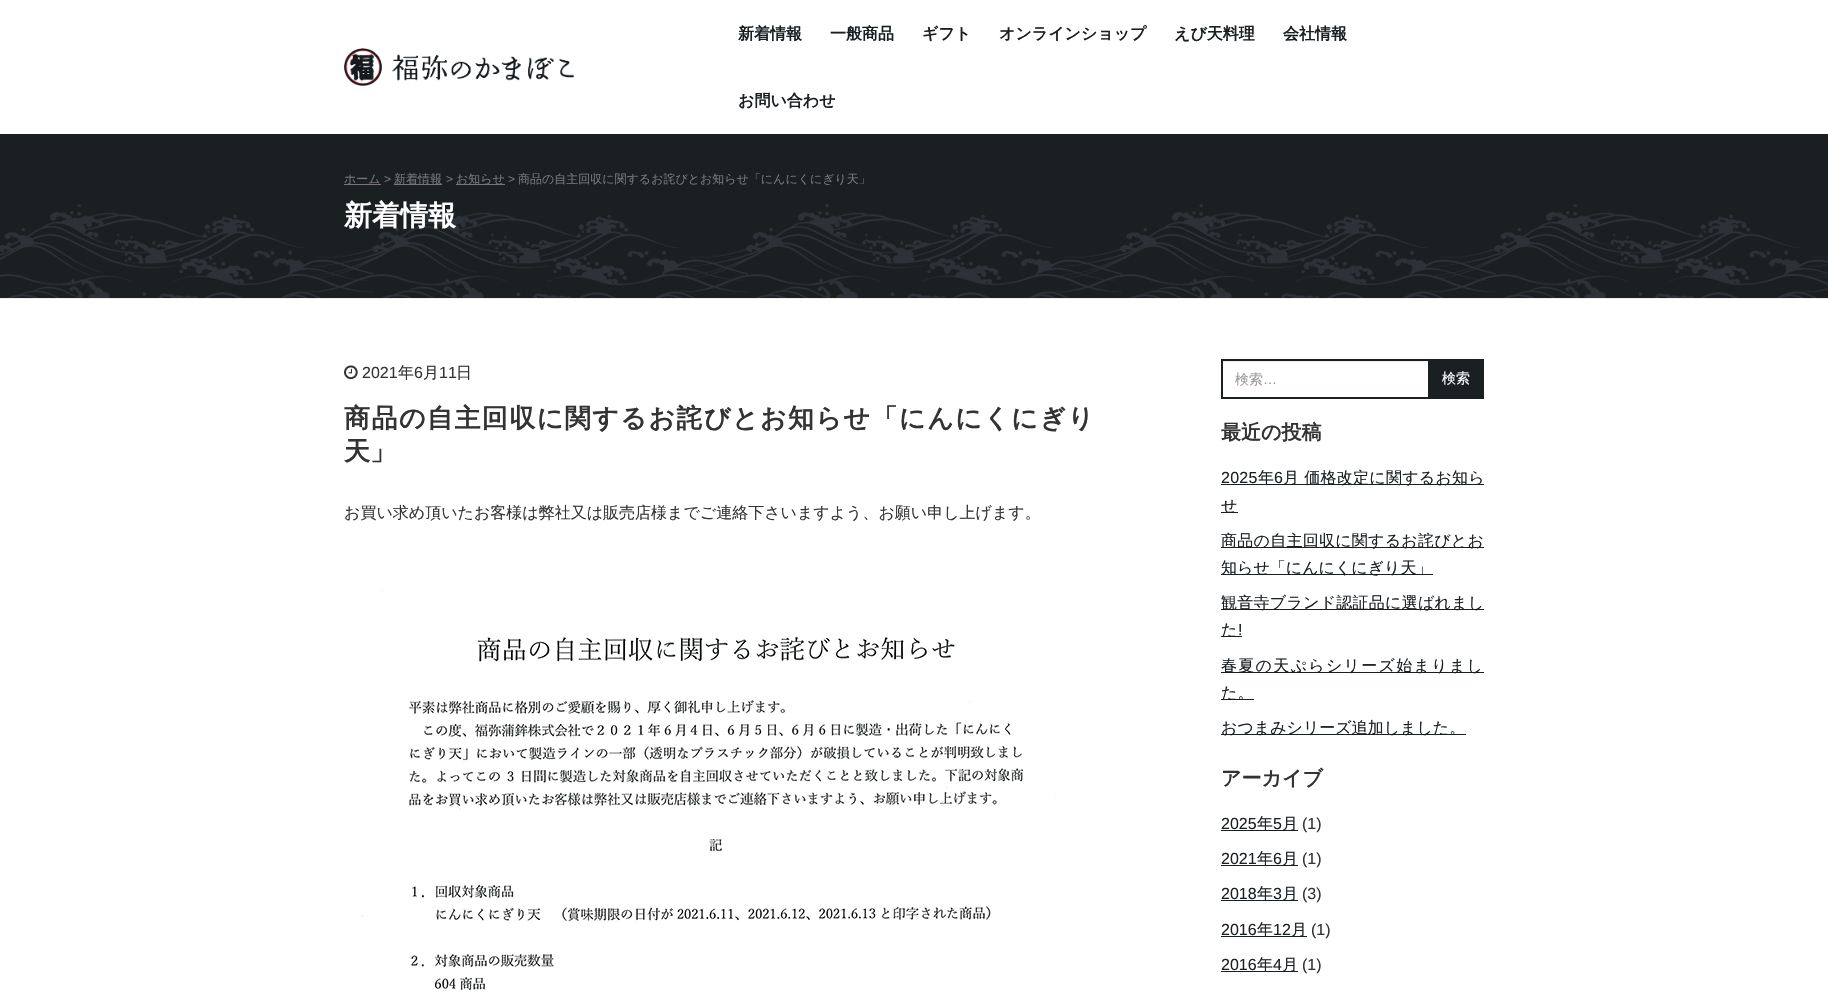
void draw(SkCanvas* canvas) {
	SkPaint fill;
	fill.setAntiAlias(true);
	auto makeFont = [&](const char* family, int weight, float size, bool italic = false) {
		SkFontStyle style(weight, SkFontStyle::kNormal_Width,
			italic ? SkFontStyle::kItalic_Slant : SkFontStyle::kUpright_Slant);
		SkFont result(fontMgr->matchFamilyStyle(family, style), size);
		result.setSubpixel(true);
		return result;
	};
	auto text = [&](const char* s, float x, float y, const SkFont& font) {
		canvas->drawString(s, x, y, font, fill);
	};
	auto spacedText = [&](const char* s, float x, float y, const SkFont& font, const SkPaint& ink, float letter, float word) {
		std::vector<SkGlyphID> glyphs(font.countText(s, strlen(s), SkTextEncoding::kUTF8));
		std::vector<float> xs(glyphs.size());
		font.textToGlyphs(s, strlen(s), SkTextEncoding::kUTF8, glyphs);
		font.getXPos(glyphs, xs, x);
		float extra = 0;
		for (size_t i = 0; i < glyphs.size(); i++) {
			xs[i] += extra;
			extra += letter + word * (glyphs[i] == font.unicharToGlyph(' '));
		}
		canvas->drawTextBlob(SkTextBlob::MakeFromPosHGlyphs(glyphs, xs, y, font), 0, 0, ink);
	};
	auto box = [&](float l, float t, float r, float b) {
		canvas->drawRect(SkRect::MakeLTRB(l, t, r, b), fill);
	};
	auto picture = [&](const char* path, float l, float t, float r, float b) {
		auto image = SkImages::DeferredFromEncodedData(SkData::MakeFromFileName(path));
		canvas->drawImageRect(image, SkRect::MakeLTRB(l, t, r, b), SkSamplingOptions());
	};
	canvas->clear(0xFFFFFFFF);
	picture("image0.png", 344, 48, 574, 86);
	fill.setColor(0xFF1A1F22);
	box(0, 134, 1828, 298);
	fill.setColor(0xFF777777);
	box(344, 184, 381, 185);
	box(394, 184, 442, 185);
	box(456, 184, 505, 185);
	picture("image1.png", 0, 204, 1828, 298);
	fill.setColor(0xFFEEEEEE);
	box(0, 298, 1828, 299);
	picture("image2.png", 344, 365, 358, 380);
	picture("image3.png", 361, 572, 1094, 994);
	fill.setColor(0xFFECECEC);
	box(1223, 361, 1428, 362);
	fill.setColor(0xFF1A1F22);
	box(1428, 359, 1484, 399);
	box(1221, 359, 1429, 361);
	box(1221, 397, 1429, 399);
	box(1221, 359, 1223, 399);
	box(1221, 484, 1484, 485);
	box(1221, 512, 1238, 513);
	box(1221, 547, 1484, 548);
	box(1221, 574, 1433, 575);
	box(1221, 609, 1484, 610);
	box(1221, 636, 1242, 637);
	box(1221, 672, 1484, 673);
	box(1221, 699, 1254, 700);
	box(1221, 734, 1466, 735);
	box(1221, 830, 1298, 831);
	box(1221, 865, 1298, 866);
	box(1221, 900, 1298, 901);
	box(1221, 936, 1307, 937);
	box(1221, 971, 1298, 972);
	auto font1 = makeFont("WenQuanYi Zen Hei", 700, 16);
	text("新着情報", 738, 39, font1);
	text("一般商品", 830, 39, font1);
	text("ギフト", 922, 39, font1);
	text("オンラインショップ", 999, 39, font1);
	text("えび天料理", 1174, 39, font1);
	text("会社情報", 1283, 39, font1);
	text("お問い合わせ", 738, 106, font1);
	auto font2 = makeFont("WenQuanYi Zen Hei", 500, 12);
	fill.setColor(0xFF777777);
	text("ホーム", 344, 183, font2);
	auto font3 = makeFont("Liberation Sans", 400, 12);
	text(">", 384, 183, font3);
	text("新着情報", 394, 183, font2);
	text(">", 446, 183, font3);
	text("お知らせ", 456, 183, font2);
	text(">", 508, 183, font3);
	text("商品の自主回収に関するお詫びとお知らせ「にんにくにぎり天」", 518, 183, font2);
	auto font4 = makeFont("WenQuanYi Zen Hei", 700, 28);
	fill.setColor(0xFFFFFFFF);
	text("新着情報", 344, 225, font4);
	auto font5 = makeFont("Liberation Sans", 400, 16);
	fill.setColor(0xFF333333);
	text("2021", 362, 378, font5);
	auto font6 = makeFont("WenQuanYi Zen Hei", 500, 16);
	text("年", 398, 378, font6);
	text("6", 414, 378, font5);
	text("月", 423, 378, font6);
	text("11", 439, 378, font5);
	text("日", 456, 378, font6);
	auto font7 = makeFont("WenQuanYi Zen Hei", 700, 26);
	spacedText("商品の自主回収に関するお詫びとお知らせ「にんにくにぎり", 344, 427, font7, fill, 1.45f, 0);
	text("天」", 344, 460, font7);
	text("お買い求め頂いたお客様は弊社又は販売店様までご連絡下さいますよう、お願い申し上げます。", 344, 518, font6);
	auto font8 = makeFont("WenQuanYi Zen Hei", 500, 14);
	fill.setColor(0xFF999999);
	text("検索", 1235, 384, font8);
	auto font9 = makeFont("Liberation Sans", 400, 14);
	text("…", 1263, 384, font9);
	fill.setColor(0xFFFFFFFF);
	text("検索", 1442, 383, font8);
	auto font10 = makeFont("WenQuanYi Zen Hei", 700, 20);
	fill.setColor(0xFF333333);
	text("最近の投稿", 1221, 439, font10);
	fill.setColor(0xFF1A1F22);
	spacedText("2025", 1221, 483, font5, fill, 0.25f, 0);
	spacedText("年", 1258, 483, font6, fill, 0.25f, 0);
	spacedText("6", 1274, 483, font5, fill, 0.25f, 0);
	spacedText("月 価格改定に関するお知ら", 1283, 483, font6, fill, 0.25f, 0);
	text("せ", 1221, 511, font6);
	spacedText("商品の自主回収に関するお詫びとお", 1221, 546, font6, fill, 0.25f, 0);
	text("知らせ「にんにくにぎり天」", 1221, 573, font6);
	spacedText("観音寺ブランド認証品に選ばれまし", 1221, 608, font6, fill, 0.25f, 0);
	text("た", 1221, 635, font6);
	text("!", 1238, 635, font5);
	spacedText("春夏の天ぷらシリーズ始まりまし", 1221, 671, font6, fill, 1.3f, 0);
	text("た。", 1221, 698, font6);
	text("おつまみシリーズ追加しました。", 1221, 733, font6);
	fill.setColor(0xFF333333);
	text("アーカイブ", 1221, 785, font10);
	fill.setColor(0xFF1A1F22);
	text("2025", 1221, 829, font5);
	text("年", 1257, 829, font6);
	text("5", 1273, 829, font5);
	text("月", 1282, 829, font6);
	fill.setColor(0xFF333333);
	text("(1)", 1302, 829, font5);
	fill.setColor(0xFF1A1F22);
	text("2021", 1221, 864, font5);
	text("年", 1257, 864, font6);
	text("6", 1273, 864, font5);
	text("月", 1282, 864, font6);
	fill.setColor(0xFF333333);
	text("(1)", 1302, 864, font5);
	fill.setColor(0xFF1A1F22);
	text("2018", 1221, 899, font5);
	text("年", 1257, 899, font6);
	text("3", 1273, 899, font5);
	text("月", 1282, 899, font6);
	fill.setColor(0xFF333333);
	text("(3)", 1302, 899, font5);
	fill.setColor(0xFF1A1F22);
	text("2016", 1221, 935, font5);
	text("年", 1257, 935, font6);
	text("12", 1273, 935, font5);
	text("月", 1291, 935, font6);
	fill.setColor(0xFF333333);
	text("(1)", 1311, 935, font5);
	fill.setColor(0xFF1A1F22);
	text("2016", 1221, 970, font5);
	text("年", 1257, 970, font6);
	text("4", 1273, 970, font5);
	text("月", 1282, 970, font6);
	fill.setColor(0xFF333333);
	text("(1)", 1302, 970, font5);
}
